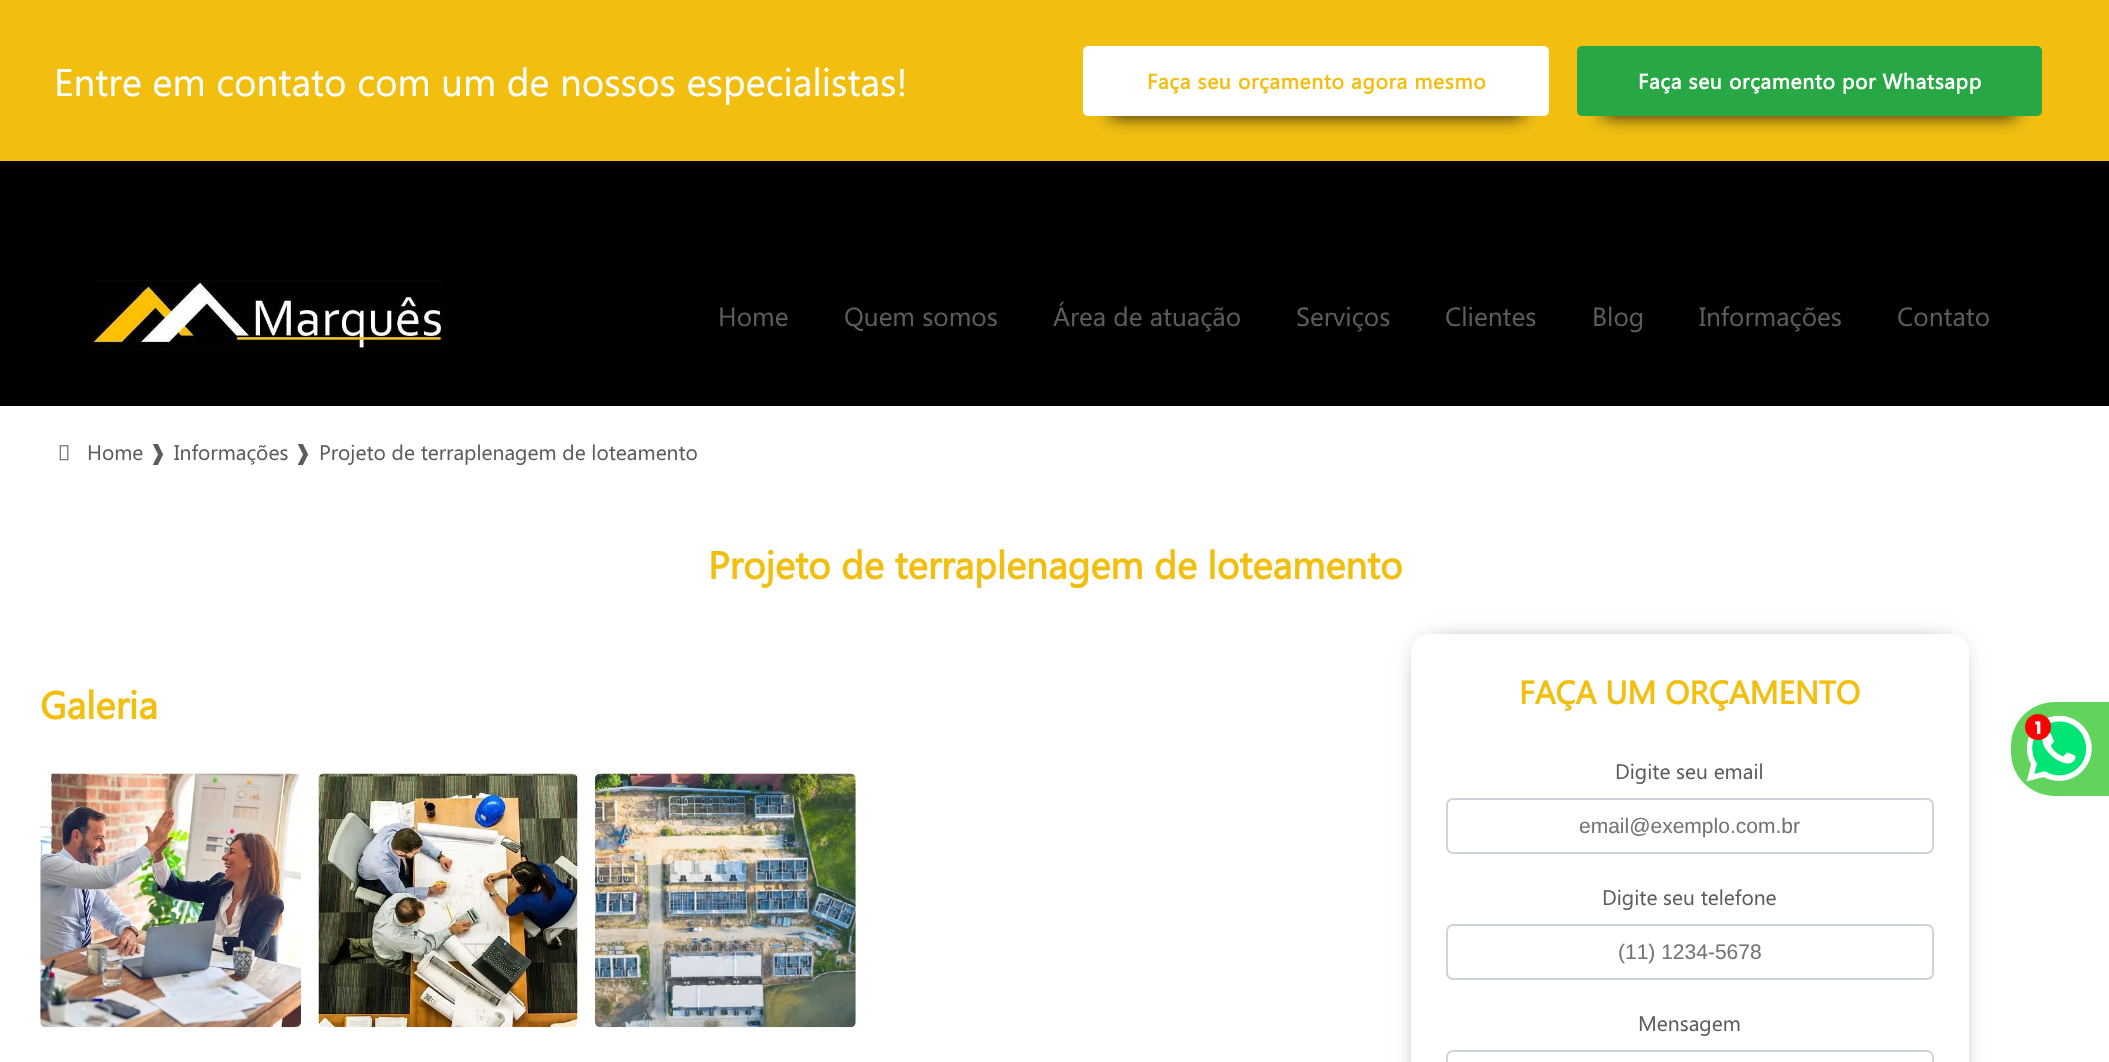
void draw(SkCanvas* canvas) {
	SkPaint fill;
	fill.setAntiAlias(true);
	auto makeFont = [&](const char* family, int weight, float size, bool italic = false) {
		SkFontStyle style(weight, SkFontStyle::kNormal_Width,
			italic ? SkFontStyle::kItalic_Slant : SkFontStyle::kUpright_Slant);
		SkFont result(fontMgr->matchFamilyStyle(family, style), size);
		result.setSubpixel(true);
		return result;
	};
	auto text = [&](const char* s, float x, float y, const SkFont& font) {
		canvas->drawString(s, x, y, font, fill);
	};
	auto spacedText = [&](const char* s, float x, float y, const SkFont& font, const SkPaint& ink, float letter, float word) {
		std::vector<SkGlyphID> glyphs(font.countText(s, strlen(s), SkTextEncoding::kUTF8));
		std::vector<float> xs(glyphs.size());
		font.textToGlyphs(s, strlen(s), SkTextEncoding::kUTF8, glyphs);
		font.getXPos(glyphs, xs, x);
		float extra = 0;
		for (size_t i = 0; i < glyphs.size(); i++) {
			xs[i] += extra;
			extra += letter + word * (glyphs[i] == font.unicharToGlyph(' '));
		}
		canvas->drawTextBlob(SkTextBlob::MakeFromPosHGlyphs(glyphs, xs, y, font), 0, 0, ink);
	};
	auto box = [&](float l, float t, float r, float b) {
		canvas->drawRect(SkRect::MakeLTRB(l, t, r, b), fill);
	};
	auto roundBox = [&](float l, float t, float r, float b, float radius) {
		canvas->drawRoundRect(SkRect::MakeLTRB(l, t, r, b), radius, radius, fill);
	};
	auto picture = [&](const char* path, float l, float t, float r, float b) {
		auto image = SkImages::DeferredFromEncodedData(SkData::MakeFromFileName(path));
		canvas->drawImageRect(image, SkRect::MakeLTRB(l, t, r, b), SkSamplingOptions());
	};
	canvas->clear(0xFFFFFFFF);
	fill.setColor(0xFFF2BF11);
	box(0, 0, 2109, 161);
	fill.setColor(0xFF111111);
	fill.setMaskFilter(SkMaskFilter::MakeBlur(kNormal_SkBlurStyle, 9));
	canvas->drawRect(SkRect::MakeLTRB(1110, 98, 1523, 116), fill);
	fill.setMaskFilter(nullptr);
	fill.setColor(0xFFFFFFFF);
	roundBox(1083, 46, 1549, 116, 5);
	fill.setColor(0xFF111111);
	fill.setMaskFilter(SkMaskFilter::MakeBlur(kNormal_SkBlurStyle, 9));
	canvas->drawRect(SkRect::MakeLTRB(1603, 98, 2016, 116), fill);
	fill.setMaskFilter(nullptr);
	fill.setColor(0xFF28A745);
	roundBox(1577, 46, 2042, 116, 5);
	fill.setColor(0xFF000000);
	box(0, 161, 2109, 406);
	picture("image0.png", 92, 280, 443, 350);
	picture("image1.png", 59, 445, 69, 461);
	picture("image2.png", 40, 773, 301, 1028);
	picture("image3.png", 318, 773, 578, 1028);
	picture("image4.png", 595, 773, 856, 1028);
	fill.setMaskFilter(SkMaskFilter::MakeBlur(kNormal_SkBlurStyle, 13));
	canvas->drawRect(SkRect::MakeLTRB(1428, 651, 1951, 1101), fill);
	fill.setMaskFilter(nullptr);
	fill.setColor(0xFFFFFFFF);
	roundBox(1411, 634, 1969, 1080, 18);
	fill.setStyle(SkPaint::kStroke_Style);
	fill.setStrokeWidth(2);
	fill.setColor(0xFFCED4DA);
	canvas->drawRoundRect(SkRect::MakeLTRB(1447, 799, 1933, 853), 6, 6, fill);
	canvas->drawRoundRect(SkRect::MakeLTRB(1447, 925, 1933, 979), 6, 6, fill);
	canvas->drawRoundRect(SkRect::MakeLTRB(1447, 1051, 1933, 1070), 6, 6, fill);
	fill.setStyle(SkPaint::kFill_Style);
	fill.setColor(0xFF62D45D);
	canvas->drawPath(SkPathBuilder().moveTo(2055, 702).lineTo(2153, 702).lineTo(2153, 796).lineTo(2055, 796).cubicTo(2030.5f, 796, 2011, 776.5f, 2011, 752).lineTo(2011, 746).cubicTo(2011, 721.5f, 2030.5f, 702, 2055, 702).close().detach(), fill);
	fill.setColor(0xFF00E676);
	canvas->drawCircle(2059.5f, 749.5f, 31.5f, fill);
	picture("image5.png", 2026, 715, 2092, 782);
	fill.setColor(0xFFFF0000);
	canvas->drawCircle(2038, 727, 13, fill);
	auto font1 = makeFont("Segoe UI", 400, 38.5f);
	fill.setColor(0xFFFFFFFF);
	text("Entre em contato com um de nossos especialistas!", 54, 96, font1);
	auto font2 = makeFont("Segoe UI", 700, 21);
	fill.setColor(0xFFF2BF11);
	spacedText("Faça seu orçamento agora mesmo", 1147, 89, font2, fill, 0.7f, 0);
	fill.setColor(0xFFFFFFFF);
	spacedText("Faça seu orçamento por Whatsapp", 1638, 89, font2, fill, 0.7f, 0);
	auto font3 = makeFont("Segoe UI", 400, 26.25f);
	fill.setColor(0xFF5C5C5C);
	text("Home", 718, 326, font3);
	text("Quem somos", 844, 326, font3);
	text("Área de atuação", 1053, 326, font3);
	text("Serviços", 1296, 326, font3);
	text("Clientes", 1445, 326, font3);
	text("Blog", 1592, 326, font3);
	text("Informações", 1699, 326, font3);
	text("Contato", 1897, 326, font3);
	auto font4 = makeFont("Segoe UI", 400, 21);
	text("Home", 87, 460, font4);
	auto font5 = makeFont("DejaVu Sans", 400, 21);
	text("❱", 149, 460, font5);
	text("Informações", 174, 460, font4);
	text("❱", 294, 460, font5);
	text("Projeto de terraplenagem de loteamento", 319, 460, font4);
	auto font6 = makeFont("Segoe UI", 700, 38.5f);
	fill.setColor(0xFFF2BF11);
	text("Projeto de terraplenagem de loteamento", 708, 579, font6);
	text("Galeria", 40, 719, font6);
	auto font7 = makeFont("Segoe UI", 700, 32.25f);
	text("FAÇA UM ORÇAMENTO", 1519, 704, font7);
	fill.setColor(0xFF5C5C5C);
	text("Digite seu email", 1615, 779, font4);
	auto font8 = makeFont("Liberation Sans", 400, 21);
	fill.setColor(0xFF757575);
	text("email@exemplo.com.br", 1579, 833, font8);
	fill.setColor(0xFF5C5C5C);
	text("Digite seu telefone", 1602, 905, font4);
	fill.setColor(0xFF757575);
	text("(11) 1234-5678", 1618, 959, font8);
	fill.setColor(0xFF5C5C5C);
	text("Mensagem", 1638, 1031, font4);
	auto font9 = makeFont("Poppins", 700, 17);
	fill.setColor(0xFFFFFFFF);
	text("1", 2035, 734, font9);
}
